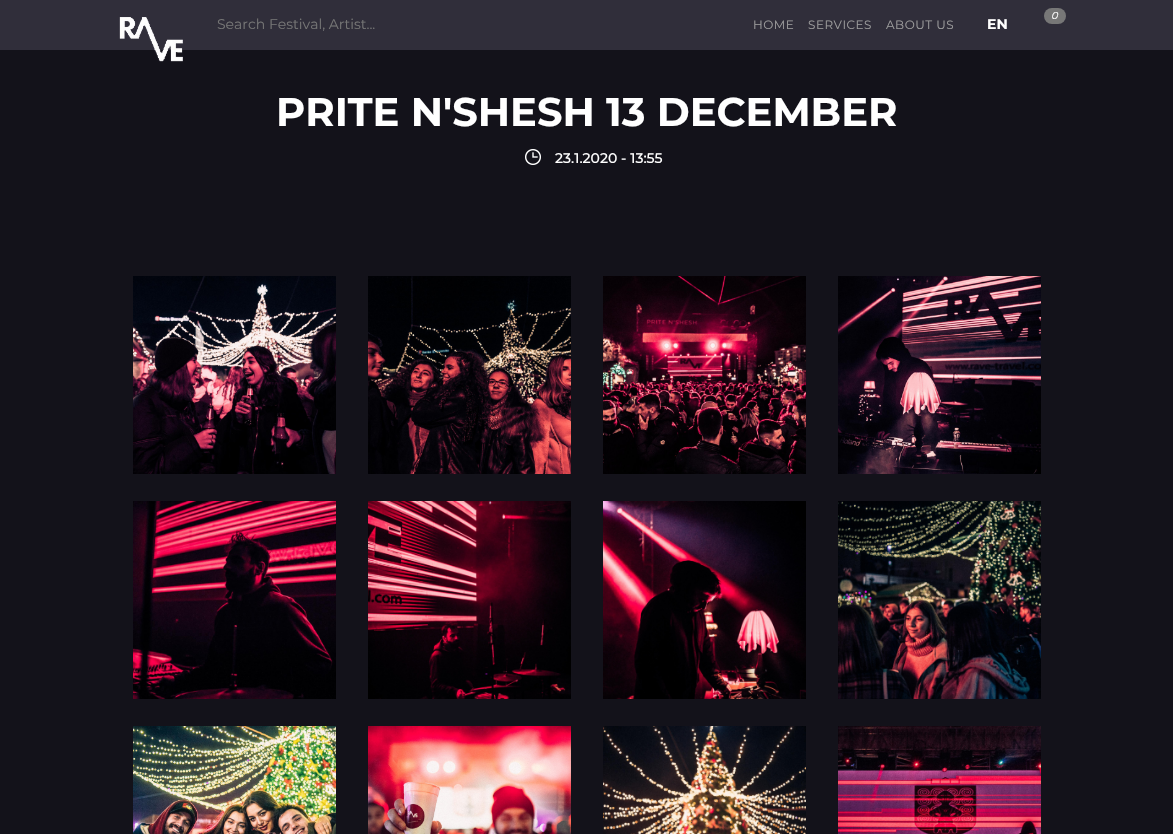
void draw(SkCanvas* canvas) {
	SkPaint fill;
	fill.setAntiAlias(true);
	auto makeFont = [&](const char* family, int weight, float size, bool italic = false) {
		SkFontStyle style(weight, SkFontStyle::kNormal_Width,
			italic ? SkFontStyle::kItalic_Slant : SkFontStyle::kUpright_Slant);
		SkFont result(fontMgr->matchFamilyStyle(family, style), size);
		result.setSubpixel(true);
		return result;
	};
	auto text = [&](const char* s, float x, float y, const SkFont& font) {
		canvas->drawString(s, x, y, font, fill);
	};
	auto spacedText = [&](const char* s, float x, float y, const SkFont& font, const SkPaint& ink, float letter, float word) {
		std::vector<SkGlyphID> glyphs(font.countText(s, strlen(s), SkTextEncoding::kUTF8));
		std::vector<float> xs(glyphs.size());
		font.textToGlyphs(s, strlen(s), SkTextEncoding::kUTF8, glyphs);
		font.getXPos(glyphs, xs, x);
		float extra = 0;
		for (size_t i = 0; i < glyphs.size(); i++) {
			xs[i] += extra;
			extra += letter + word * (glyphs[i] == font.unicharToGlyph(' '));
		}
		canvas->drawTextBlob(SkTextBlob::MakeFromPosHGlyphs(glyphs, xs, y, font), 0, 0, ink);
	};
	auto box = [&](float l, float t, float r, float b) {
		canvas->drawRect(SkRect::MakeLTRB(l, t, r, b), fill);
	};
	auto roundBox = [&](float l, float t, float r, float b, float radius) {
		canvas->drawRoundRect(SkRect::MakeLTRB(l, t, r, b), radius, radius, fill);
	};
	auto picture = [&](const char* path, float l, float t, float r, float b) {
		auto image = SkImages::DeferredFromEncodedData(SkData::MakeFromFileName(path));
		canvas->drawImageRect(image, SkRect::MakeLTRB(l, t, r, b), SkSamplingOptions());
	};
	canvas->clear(0xFF13121A);
	fill.setColor(0xFF302E3A);
	box(0, 0, 1173, 50);
	picture("image0.png", 119, 17, 183, 62);
	fill.setColor(0xFF777777);
	roundBox(1044, 8, 1066, 24, 8);
	picture("image1.png", 525, 149, 541, 165);
	picture("image2.png", 133, 276, 336, 474);
	picture("image3.png", 368, 276, 571, 474);
	picture("image4.png", 603, 276, 806, 474);
	picture("image5.png", 838, 276, 1041, 474);
	picture("image6.png", 133, 501, 336, 699);
	picture("image7.png", 368, 501, 571, 699);
	picture("image8.png", 603, 501, 806, 699);
	picture("image9.png", 838, 501, 1041, 699);
	picture("image10.png", 133, 726, 336, 834);
	picture("image11.png", 368, 726, 571, 834);
	picture("image12.png", 603, 726, 806, 834);
	picture("image13.png", 838, 726, 1041, 834);
	auto font1 = makeFont("Montserrat", 400, 14);
	fill.setColor(0xFF757575);
	text("Search Festival, Artist...", 217, 29, font1);
	auto font2 = makeFont("Montserrat", 400, 12);
	fill.setColor(0xFF9D9D9D);
	spacedText("HOME", 753, 29, font2, fill, 0.5f, 0);
	spacedText("SERVICES", 808, 29, font2, fill, 0.5f, 0);
	spacedText("ABOUT US", 886, 29, font2, fill, 0.5f, 0);
	auto font3 = makeFont("Montserrat", 400, 10, true);
	fill.setColor(0xFFFFFFFF);
	spacedText("0", 1051, 19, font3, fill, 1, 0);
	auto font4 = makeFont("Montserrat", 700, 14);
	text("EN", 987, 29, font4);
	auto font5 = makeFont("Montserrat", 700, 40);
	text("PRITE N'SHESH 13 DECEMBER", 276, 126, font5);
	auto font6 = makeFont("Montserrat", 500, 14);
	text("23.1.2020 - 13:55", 555, 163, font6);
}
